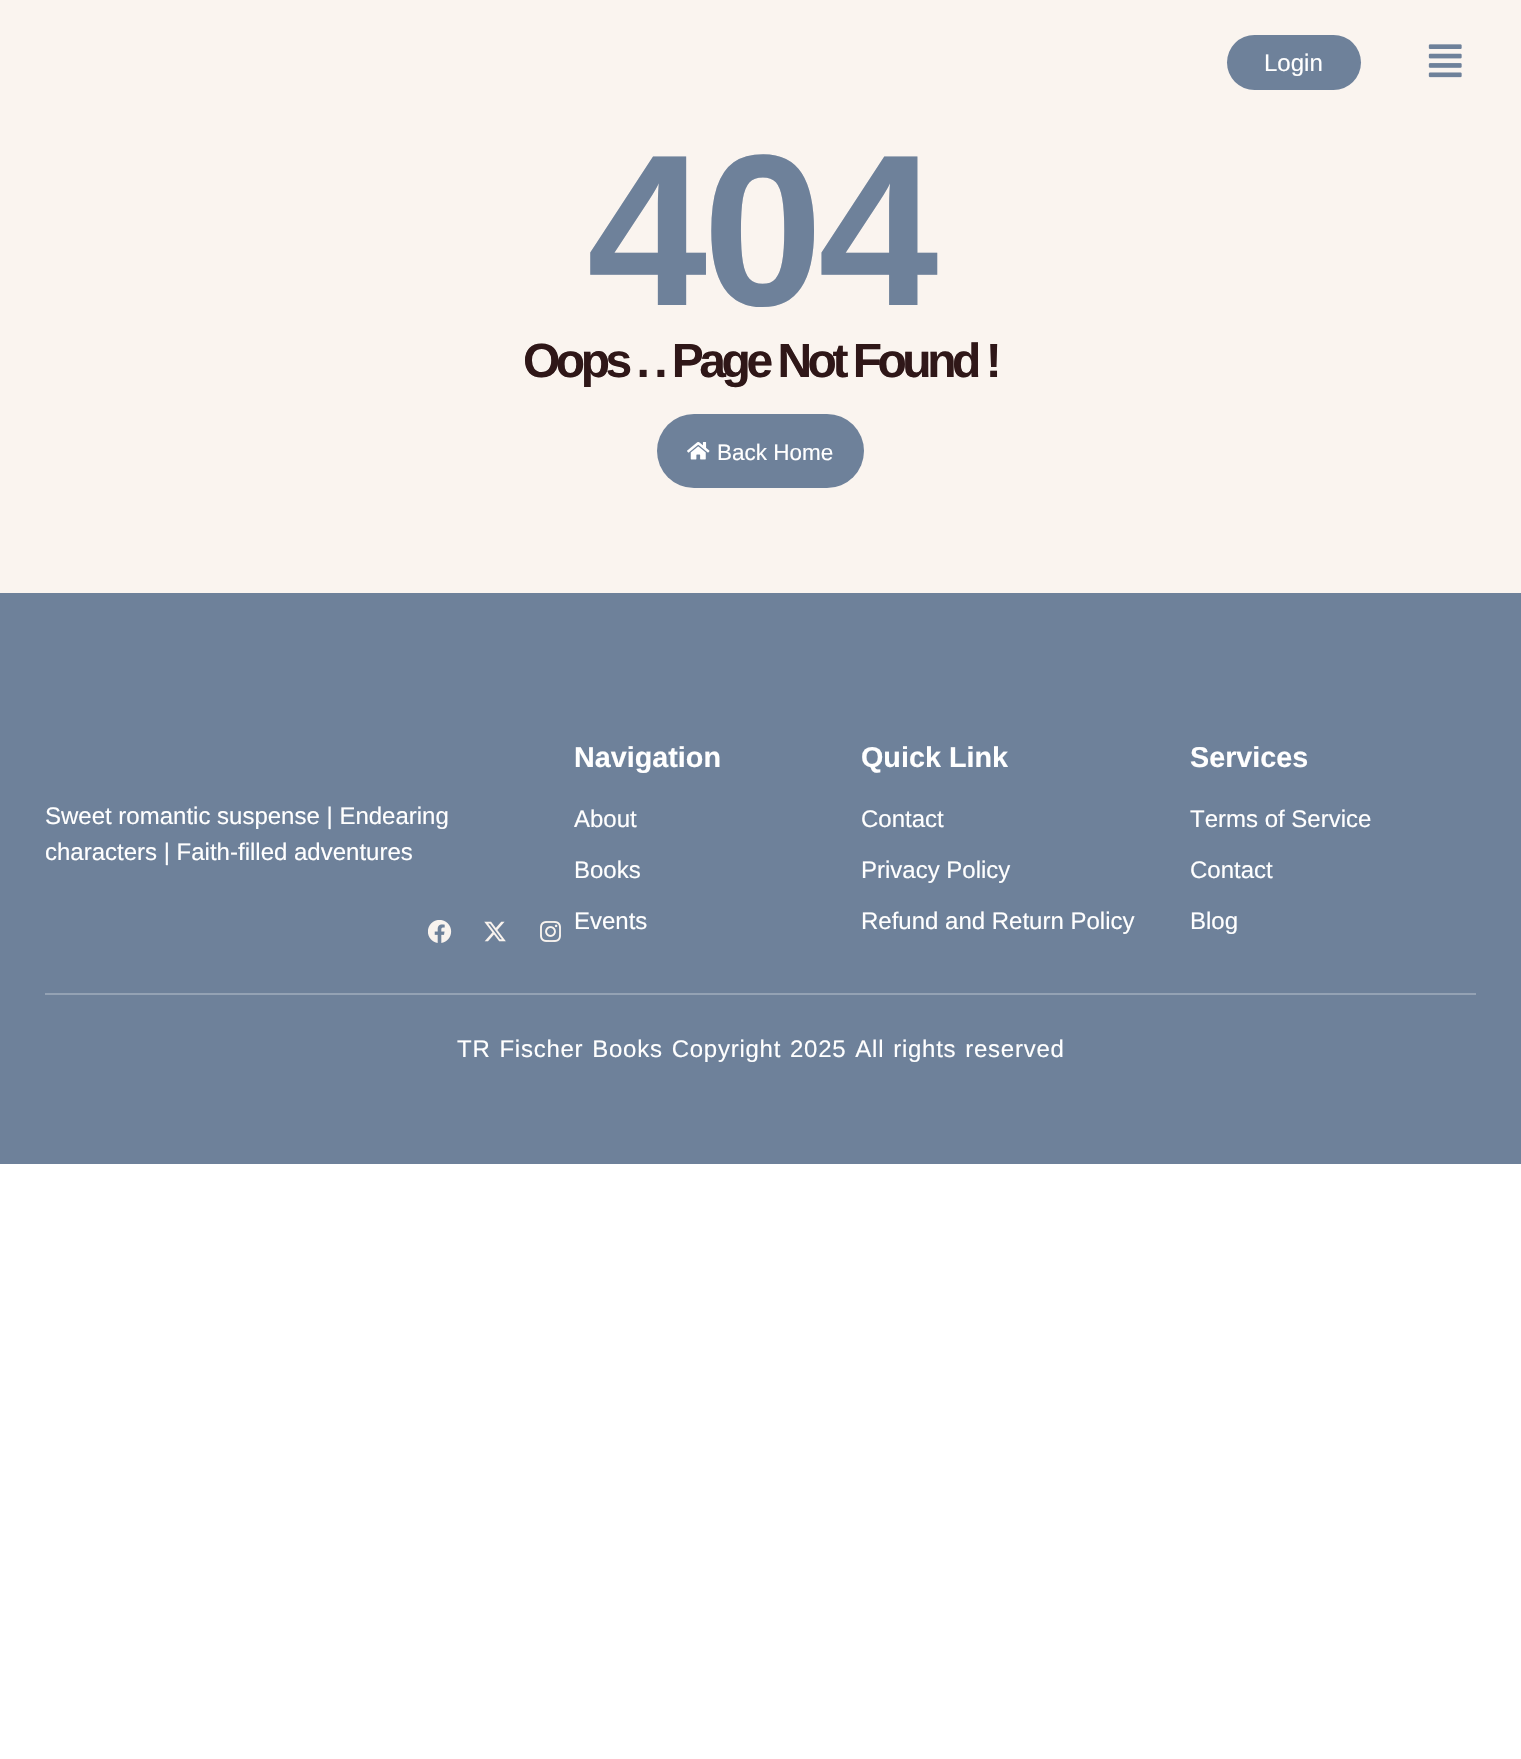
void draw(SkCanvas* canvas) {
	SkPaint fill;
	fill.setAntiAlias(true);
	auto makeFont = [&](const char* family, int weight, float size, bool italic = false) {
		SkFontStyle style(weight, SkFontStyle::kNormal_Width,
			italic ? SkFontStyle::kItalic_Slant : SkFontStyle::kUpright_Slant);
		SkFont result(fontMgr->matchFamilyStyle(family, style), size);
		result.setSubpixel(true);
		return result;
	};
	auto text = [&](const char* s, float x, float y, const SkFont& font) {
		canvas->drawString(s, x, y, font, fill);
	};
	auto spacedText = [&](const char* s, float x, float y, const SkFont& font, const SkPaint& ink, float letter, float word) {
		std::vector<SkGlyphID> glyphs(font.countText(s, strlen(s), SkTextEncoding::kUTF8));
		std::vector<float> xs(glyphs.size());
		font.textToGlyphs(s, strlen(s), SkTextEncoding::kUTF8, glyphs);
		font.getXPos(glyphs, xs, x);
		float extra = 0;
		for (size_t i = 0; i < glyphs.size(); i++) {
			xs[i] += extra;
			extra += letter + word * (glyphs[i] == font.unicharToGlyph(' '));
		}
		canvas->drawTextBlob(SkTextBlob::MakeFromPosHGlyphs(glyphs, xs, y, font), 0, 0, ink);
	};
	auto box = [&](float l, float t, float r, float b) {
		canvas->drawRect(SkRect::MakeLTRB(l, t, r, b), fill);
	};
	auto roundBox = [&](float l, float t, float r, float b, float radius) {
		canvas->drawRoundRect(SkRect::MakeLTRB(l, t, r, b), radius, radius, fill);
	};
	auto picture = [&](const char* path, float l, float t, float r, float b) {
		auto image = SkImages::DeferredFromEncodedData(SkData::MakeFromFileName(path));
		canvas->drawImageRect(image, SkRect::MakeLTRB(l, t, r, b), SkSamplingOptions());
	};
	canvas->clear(0xFFFFFFFF);
	fill.setColor(0xFFFAF4EF);
	box(0, 0, 1521, 593);
	fill.setColor(0xFF6E819A);
	roundBox(1227, 35, 1361, 90, 27.5f);
	picture("image0.png", 1428, 44, 1462, 78);
	roundBox(657, 414, 864, 488, 37);
	picture("image1.png", 687, 442, 710, 460);
	box(0, 593, 1521, 1164);
	picture("image2.png", 428, 920, 452, 943);
	picture("image3.png", 484, 921, 506, 942);
	picture("image4.png", 540, 921, 561, 942);
	fill.setColor(0xFF94A2B4);
	box(45, 993, 1476, 995);
	auto font1 = makeFont("Liberation Sans", 400, 24);
	fill.setColor(0xFFFFFFFF);
	text("Login", 1264, 71, font1);
	auto font2 = makeFont("Liberation Sans", 700, 216);
	fill.setColor(0xFF6E819A);
	spacedText("404", 587, 305, font2, fill, -4.5f, 0);
	auto font3 = makeFont("Liberation Sans", 700, 48);
	fill.setColor(0xFF2F1718);
	spacedText("Oops . . Page Not Found !", 523, 377, font3, fill, -4.5f, 0);
	auto font4 = makeFont("Liberation Sans", 400, 22.5f);
	fill.setColor(0xFFFFFFFF);
	text("Back Home", 717, 460, font4);
	text("Sweet romantic suspense | Endearing", 45, 824, font1);
	text("characters | Faith-filled adventures", 45, 860, font1);
	auto font5 = makeFont("Liberation Sans", 700, 28.75f);
	text("Navigation", 574, 767, font5);
	text("About", 574, 827, font1);
	text("Books", 574, 878, font1);
	text("Events", 574, 929, font1);
	text("Quick Link", 861, 767, font5);
	text("Contact", 861, 827, font1);
	text("Privacy Policy", 861, 878, font1);
	text("Refund and Return Policy", 861, 929, font1);
	text("Services", 1190, 767, font5);
	text("Terms of Service", 1190, 827, font1);
	text("Contact", 1190, 878, font1);
	text("Blog", 1190, 929, font1);
	spacedText("TR Fischer Books Copyright 2025 All rights reserved", 457, 1057, font1, fill, 0.75f, 1.5f);
}
